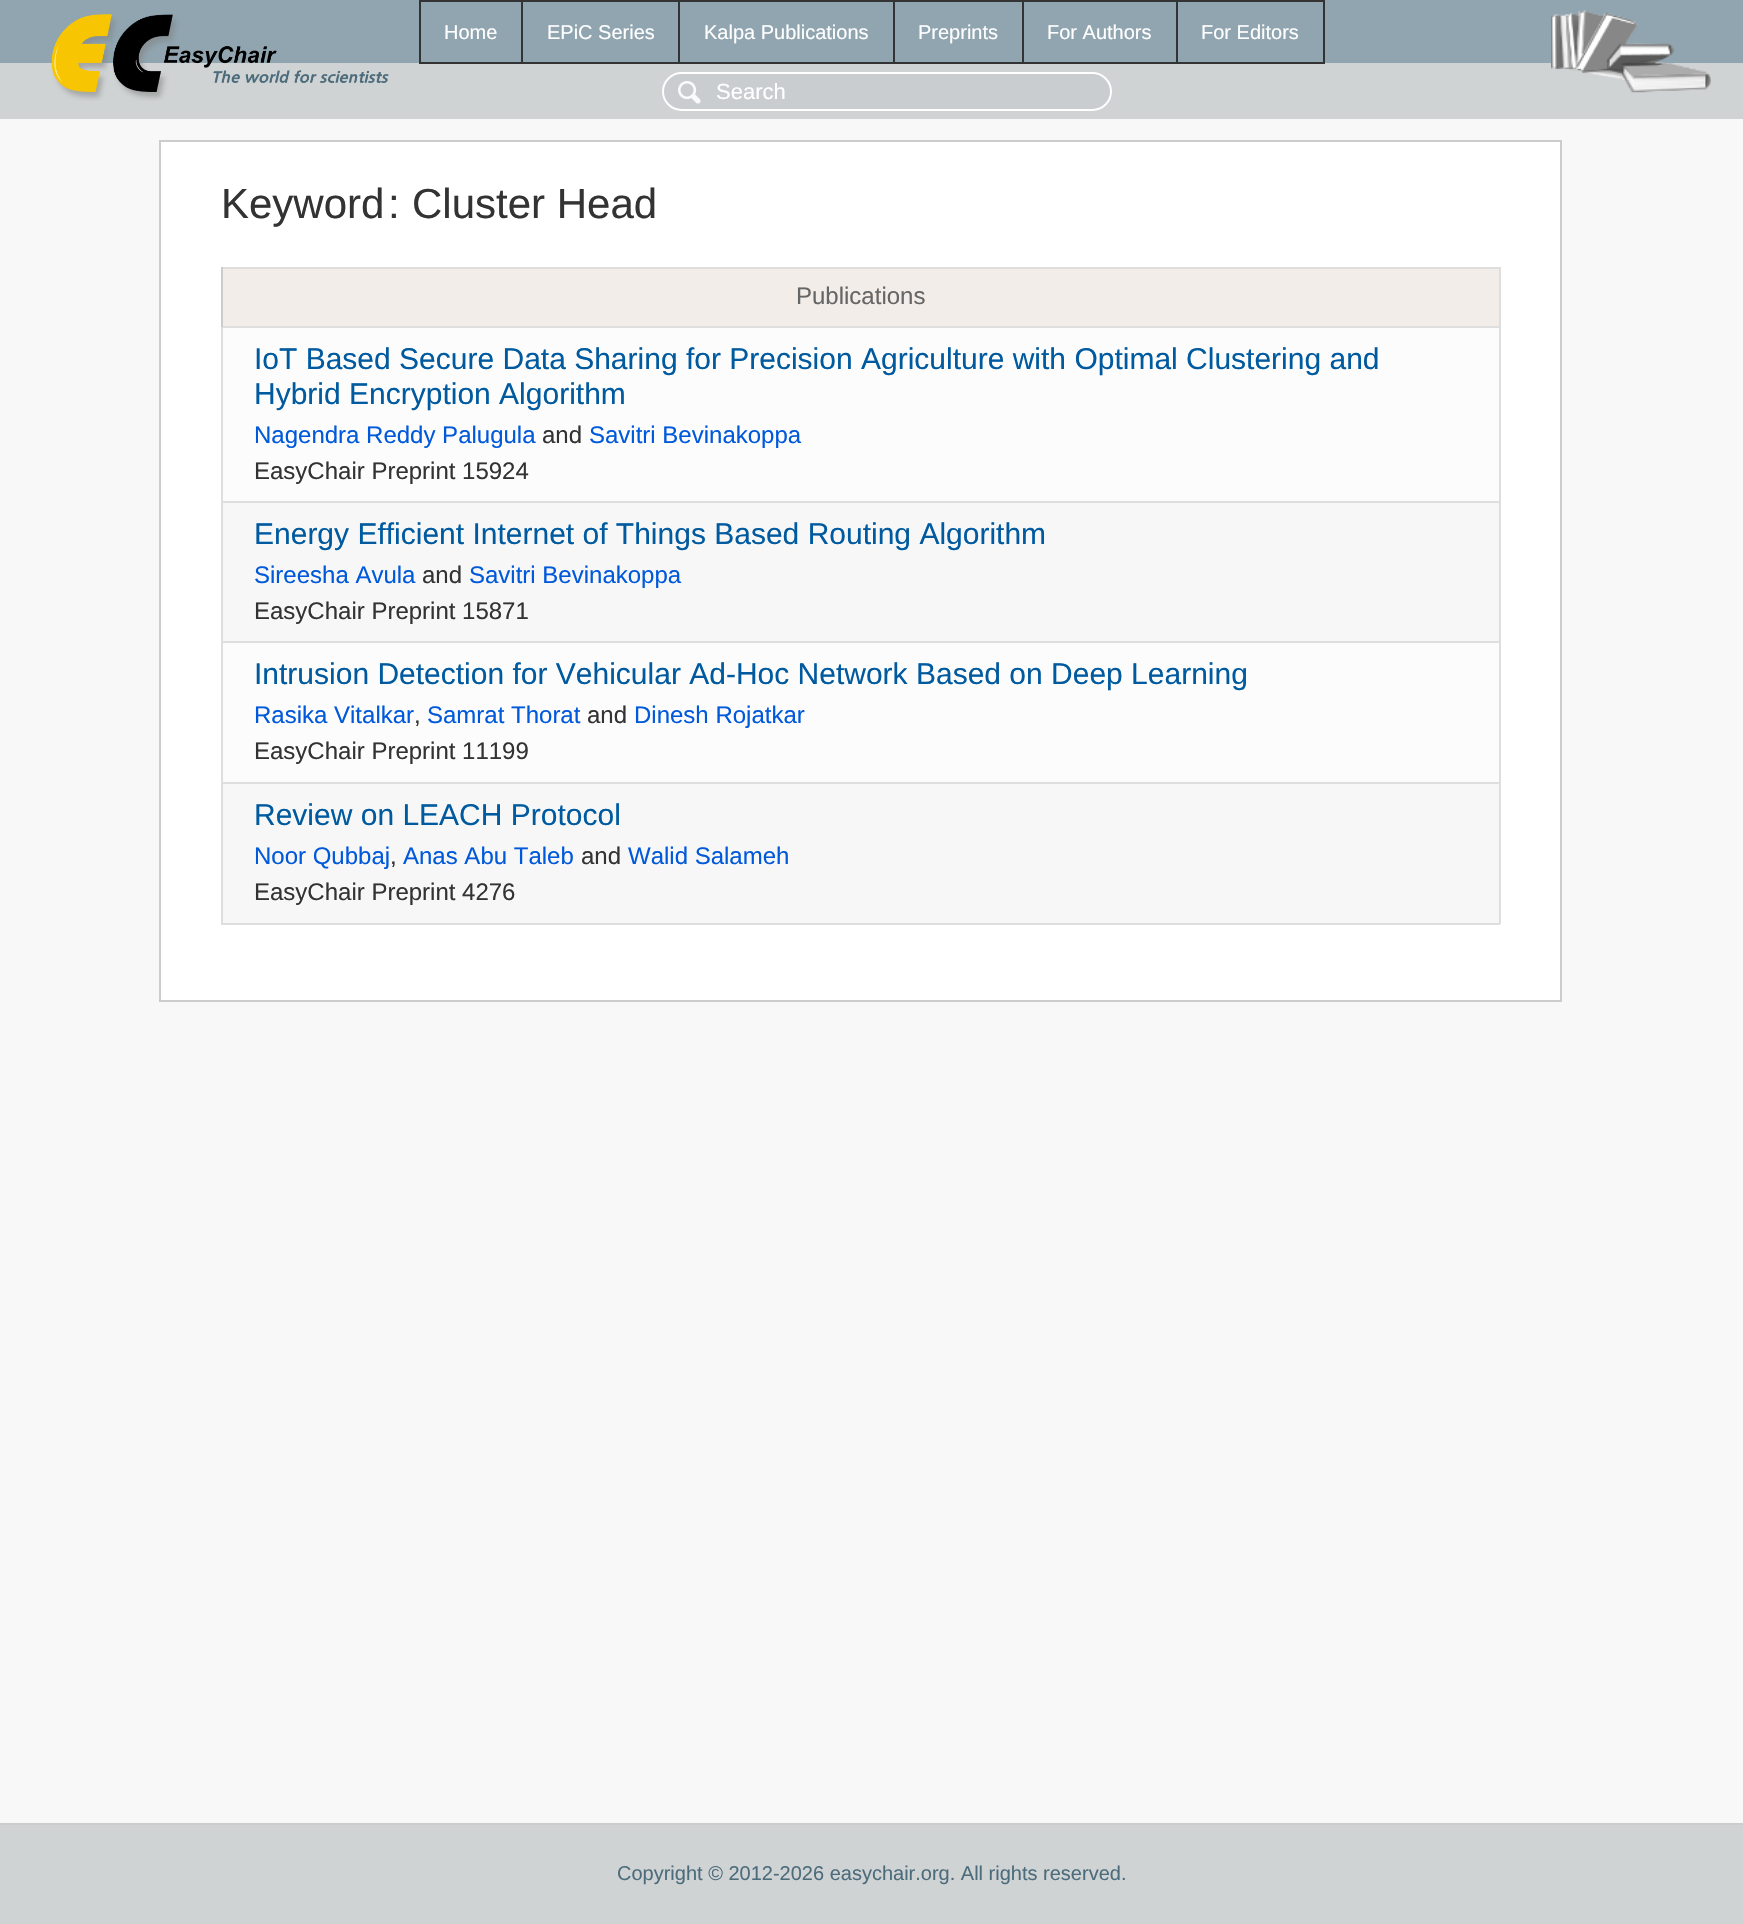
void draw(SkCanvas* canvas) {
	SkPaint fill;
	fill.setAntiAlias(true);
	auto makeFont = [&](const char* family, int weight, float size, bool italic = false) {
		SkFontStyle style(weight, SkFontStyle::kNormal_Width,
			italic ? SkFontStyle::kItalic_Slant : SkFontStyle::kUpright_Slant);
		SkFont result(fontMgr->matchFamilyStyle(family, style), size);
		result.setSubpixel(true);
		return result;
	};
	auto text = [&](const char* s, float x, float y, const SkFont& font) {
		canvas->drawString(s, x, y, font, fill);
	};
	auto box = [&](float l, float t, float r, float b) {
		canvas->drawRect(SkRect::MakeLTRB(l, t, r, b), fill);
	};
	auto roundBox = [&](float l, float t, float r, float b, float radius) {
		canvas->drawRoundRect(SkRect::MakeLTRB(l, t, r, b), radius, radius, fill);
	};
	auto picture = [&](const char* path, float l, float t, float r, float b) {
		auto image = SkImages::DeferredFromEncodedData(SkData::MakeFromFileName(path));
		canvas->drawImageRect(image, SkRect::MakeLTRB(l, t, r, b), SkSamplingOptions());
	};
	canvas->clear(0xFF90A5B0);
	fill.setColor(0xFFD0D3D4);
	box(0, 65, 1742, 117);
	box(0, 63, 1743, 65);
	picture("image0.png", 51, 14, 389, 101);
	fill.setColor(0xFF333333);
	box(1176, 0, 1325, 2);
	box(1323, 0, 1325, 63);
	box(1176, 62, 1325, 64);
	box(1176, 0, 1178, 63);
	box(1022, 0, 1178, 2);
	box(1022, 62, 1178, 64);
	box(1022, 0, 1024, 63);
	box(893, 0, 1023, 2);
	box(893, 62, 1023, 64);
	box(893, 0, 895, 63);
	box(678, 0, 894, 2);
	box(678, 62, 894, 64);
	box(678, 0, 680, 63);
	box(521, 0, 680, 2);
	box(521, 62, 680, 64);
	box(521, 0, 523, 63);
	box(419, 0, 522, 2);
	box(419, 62, 522, 64);
	box(419, 0, 421, 63);
	picture("image1.png", 1551, 10, 1711, 93);
	fill.setColor(0xFFD0D3D4);
	box(1742, 63, 1743, 119);
	box(0, 117, 1743, 119);
	fill.setColor(0xFFC9CDD0);
	roundBox(662, 72, 1112, 111, 19.5f);
	picture("image2.png", 678, 81, 701, 104);
	fill.setStyle(SkPaint::kStroke_Style);
	fill.setStrokeWidth(2);
	fill.setColor(0xFFFFFFFF);
	canvas->drawRoundRect(SkRect::MakeLTRB(663, 73, 1111, 110), 18.5f, 18.5f, fill);
	fill.setStyle(SkPaint::kFill_Style);
	fill.setColor(0xFFF8F8F8);
	box(0, 119, 1743, 1823);
	fill.setColor(0xFFFFFFFF);
	canvas->drawRect(SkRect::MakeLTRB(160, 141, 1561, 1001), fill);
	fill.setStyle(SkPaint::kStroke_Style);
	fill.setColor(0xFFCCCCCC);
	canvas->drawRect(SkRect::MakeLTRB(160, 141, 1561, 1001), fill);
	fill.setStyle(SkPaint::kFill_Style);
	fill.setColor(0xFFDEDEDE);
	box(221, 267, 1500, 269);
	box(1499, 267, 1501, 924);
	box(221, 923, 1500, 925);
	box(221, 328, 223, 924);
	fill.setColor(0xFFF2EDE9);
	box(223, 269, 1499, 326);
	fill.setColor(0xFFDEDEDE);
	box(221, 326, 1500, 328);
	fill.setColor(0xFFCCCCCC);
	box(221, 267, 223, 327);
	fill.setColor(0xFFFCFCFC);
	box(223, 328, 1499, 501);
	fill.setColor(0xFFDEDEDE);
	box(221, 501, 1500, 503);
	fill.setColor(0xFFF7F7F7);
	box(223, 503, 1499, 641);
	fill.setColor(0xFFDEDEDE);
	box(221, 641, 1500, 643);
	fill.setColor(0xFFFCFCFC);
	box(223, 643, 1499, 782);
	fill.setColor(0xFFDEDEDE);
	box(221, 782, 1500, 784);
	fill.setColor(0xFFF7F7F7);
	box(223, 784, 1499, 923);
	fill.setColor(0xFFD0D3D4);
	box(0, 1825, 1743, 1924);
	fill.setColor(0xFFCCCCCC);
	box(0, 1823, 1743, 1825);
	auto font1 = makeFont("Liberation Sans", 400, 20);
	fill.setColor(0xFFFFFFFF);
	text("Home", 444, 39, font1);
	text("EPiC Series", 547, 39, font1);
	text("Kalpa Publications", 704, 39, font1);
	text("Preprints", 918, 39, font1);
	text("For Authors", 1047, 39, font1);
	text("For Editors", 1201, 39, font1);
	auto font2 = makeFont("Liberation Sans", 400, 22);
	text("Search", 716, 99, font2);
	auto font3 = makeFont("Liberation Sans", 400, 42);
	fill.setColor(0xFF333333);
	text("Keyword", 221, 218, font3);
	text(":", 388, 218, font3);
	text("Cluster Head", 412, 218, font3);
	auto font4 = makeFont("Liberation Sans", 400, 24);
	fill.setColor(0xFF666666);
	text("Publications", 796, 304, font4);
	auto font5 = makeFont("Liberation Sans", 400, 30);
	fill.setColor(0xFF005A9F);
	text("IoT Based Secure Data Sharing for Precision Agriculture with Optimal Clustering and", 254, 369, font5);
	text("Hybrid Encryption Algorithm", 254, 404, font5);
	fill.setColor(0xFF0059DB);
	text("Nagendra Reddy Palugula", 254, 443, font4);
	fill.setColor(0xFF333333);
	text("and", 542, 443, font4);
	fill.setColor(0xFF0059DB);
	text("Savitri Bevinakoppa", 589, 443, font4);
	fill.setColor(0xFF333333);
	text("EasyChair Preprint 15924", 254, 479, font4);
	fill.setColor(0xFF005A9F);
	text("Energy Efficient Internet of Things Based Routing Algorithm", 254, 544, font5);
	fill.setColor(0xFF0059DB);
	text("Sireesha Avula", 254, 583, font4);
	fill.setColor(0xFF333333);
	text("and", 422, 583, font4);
	fill.setColor(0xFF0059DB);
	text("Savitri Bevinakoppa", 469, 583, font4);
	fill.setColor(0xFF333333);
	text("EasyChair Preprint 15871", 254, 619, font4);
	fill.setColor(0xFF005A9F);
	text("Intrusion Detection for Vehicular Ad-Hoc Network Based on Deep Learning", 254, 684, font5);
	fill.setColor(0xFF0059DB);
	text("Rasika Vitalkar", 254, 723, font4);
	fill.setColor(0xFF333333);
	text(",", 414, 723, font4);
	fill.setColor(0xFF0059DB);
	text("Samrat Thorat", 427, 723, font4);
	fill.setColor(0xFF333333);
	text("and", 587, 723, font4);
	fill.setColor(0xFF0059DB);
	text("Dinesh Rojatkar", 634, 723, font4);
	fill.setColor(0xFF333333);
	text("EasyChair Preprint 11199", 254, 759, font4);
	fill.setColor(0xFF005A9F);
	text("Review on LEACH Protocol", 254, 825, font5);
	fill.setColor(0xFF0059DB);
	text("Noor Qubbaj", 254, 864, font4);
	fill.setColor(0xFF333333);
	text(",", 390, 864, font4);
	fill.setColor(0xFF0059DB);
	text("Anas Abu Taleb", 403, 864, font4);
	fill.setColor(0xFF333333);
	text("and", 581, 864, font4);
	fill.setColor(0xFF0059DB);
	text("Walid Salameh", 628, 864, font4);
	fill.setColor(0xFF333333);
	text("EasyChair Preprint 4276", 254, 900, font4);
	fill.setColor(0xFF4C6C7C);
	text("Copyright © 2012-2026 easychair.org. All rights reserved.", 617, 1880, font1);
}
